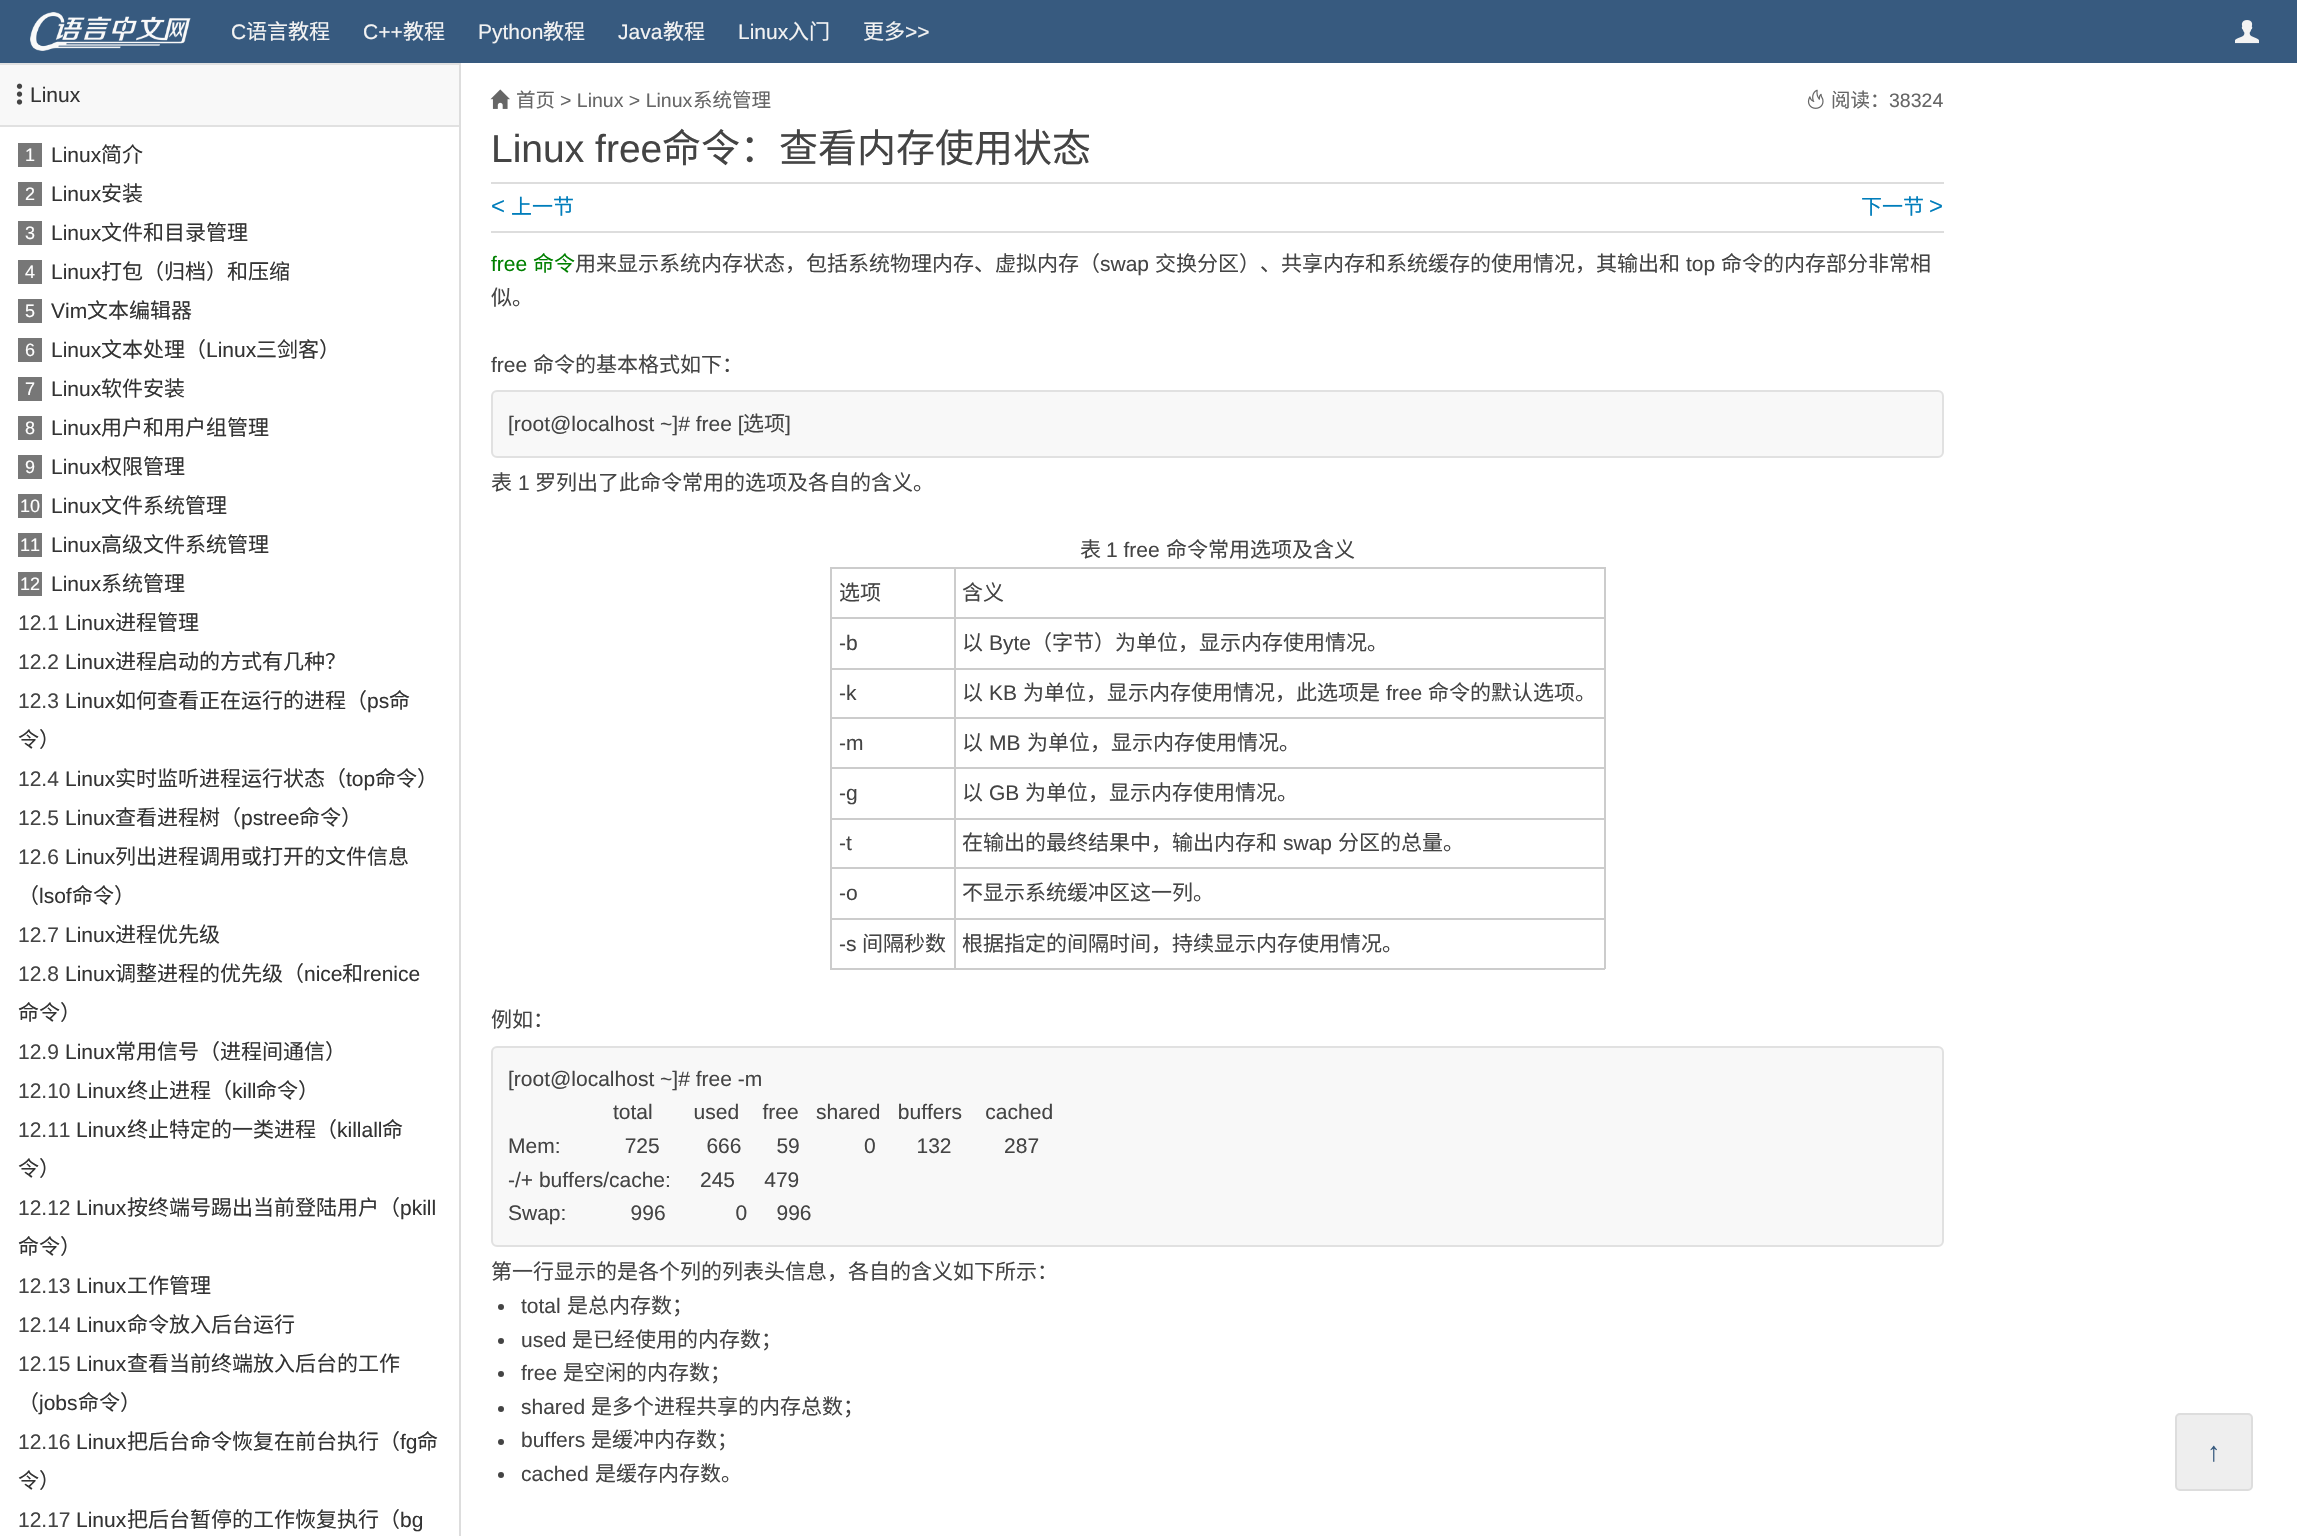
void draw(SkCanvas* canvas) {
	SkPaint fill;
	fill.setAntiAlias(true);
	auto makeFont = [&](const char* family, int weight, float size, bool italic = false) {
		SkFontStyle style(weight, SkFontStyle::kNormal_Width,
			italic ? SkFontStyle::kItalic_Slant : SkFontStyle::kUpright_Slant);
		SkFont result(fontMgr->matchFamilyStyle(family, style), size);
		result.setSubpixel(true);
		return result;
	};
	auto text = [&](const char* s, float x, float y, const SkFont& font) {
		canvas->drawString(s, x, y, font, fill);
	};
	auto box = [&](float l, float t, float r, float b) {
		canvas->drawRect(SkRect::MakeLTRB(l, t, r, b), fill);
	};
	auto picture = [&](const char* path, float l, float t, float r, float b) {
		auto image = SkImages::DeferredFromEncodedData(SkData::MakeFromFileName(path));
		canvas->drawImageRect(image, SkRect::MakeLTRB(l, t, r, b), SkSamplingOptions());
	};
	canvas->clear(0xFFFFFFFF);
	fill.setColor(0xFF375A7F);
	box(0, 0, 2297, 63);
	picture("image0.png", 30, 12, 191, 51);
	picture("image1.png", 2235, 20, 2259, 44);
	fill.setColor(0xFFDDDDDD);
	box(459, 63, 461, 1536);
	fill.setColor(0xFFF8F8F8);
	box(0, 65, 459, 125);
	fill.setColor(0xFFE1E1E1);
	box(0, 63, 459, 65);
	box(0, 125, 459, 127);
	picture("image2.png", 16, 83, 23, 105);
	fill.setColor(0xFF777777);
	box(18, 143, 42, 167);
	box(18, 182, 42, 206);
	box(18, 221, 42, 245);
	box(18, 260, 42, 284);
	box(18, 299, 42, 323);
	box(18, 338, 42, 362);
	box(18, 377, 42, 401);
	box(18, 416, 42, 440);
	box(18, 455, 42, 479);
	box(18, 494, 42, 518);
	box(18, 533, 42, 557);
	box(18, 572, 42, 596);
	picture("image3.png", 490, 89, 510, 109);
	picture("image4.png", 1807, 89, 1824, 109);
	fill.setColor(0xFFDDDDDD);
	box(491, 182, 1944, 184);
	box(491, 231, 1944, 233);
	fill.setColor(0xFFF8F8F8);
	canvas->drawRoundRect(SkRect::MakeLTRB(492, 391, 1943, 457), 5, 5, fill);
	fill.setStyle(SkPaint::kStroke_Style);
	fill.setStrokeWidth(2);
	fill.setColor(0xFFE1E1E1);
	canvas->drawRoundRect(SkRect::MakeLTRB(492, 391, 1943, 457), 5, 5, fill);
	fill.setStyle(SkPaint::kFill_Style);
	fill.setColor(0xFFCCCCCC);
	box(954, 567, 1605, 569);
	box(954, 617, 1605, 619);
	box(954, 668, 1605, 670);
	box(954, 717, 1605, 719);
	box(954, 767, 1605, 769);
	box(954, 818, 1605, 820);
	box(954, 867, 1605, 869);
	box(954, 918, 1605, 920);
	box(1604, 918, 1606, 969);
	box(954, 968, 1605, 970);
	box(954, 918, 956, 969);
	box(830, 918, 956, 920);
	box(954, 867, 956, 920);
	box(830, 867, 956, 869);
	box(954, 818, 956, 869);
	box(830, 818, 956, 820);
	box(954, 767, 956, 819);
	box(830, 767, 956, 769);
	box(954, 717, 956, 768);
	box(830, 717, 956, 719);
	box(954, 668, 956, 719);
	box(830, 668, 956, 670);
	box(954, 617, 956, 669);
	box(830, 617, 956, 619);
	box(954, 567, 956, 618);
	box(830, 567, 956, 569);
	box(830, 968, 956, 970);
	box(830, 918, 832, 969);
	box(830, 867, 832, 920);
	box(830, 818, 832, 869);
	box(830, 767, 832, 819);
	box(830, 717, 832, 768);
	box(830, 668, 832, 719);
	box(830, 617, 832, 669);
	box(830, 567, 832, 618);
	box(1604, 867, 1606, 920);
	box(1604, 818, 1606, 869);
	box(1604, 767, 1606, 819);
	box(1604, 717, 1606, 768);
	box(1604, 668, 1606, 719);
	box(1604, 617, 1606, 669);
	box(1604, 567, 1606, 618);
	fill.setColor(0xFFF8F8F8);
	canvas->drawRoundRect(SkRect::MakeLTRB(492, 1047, 1943, 1246), 5, 5, fill);
	fill.setStyle(SkPaint::kStroke_Style);
	fill.setColor(0xFFE1E1E1);
	canvas->drawRoundRect(SkRect::MakeLTRB(492, 1047, 1943, 1246), 5, 5, fill);
	fill.setStyle(SkPaint::kFill_Style);
	fill.setColor(0xFF444444);
	canvas->drawCircle(501, 1307, 3, fill);
	canvas->drawCircle(501, 1341, 3, fill);
	canvas->drawCircle(501, 1374, 3, fill);
	canvas->drawCircle(501, 1409, 3, fill);
	canvas->drawCircle(501, 1442, 3, fill);
	canvas->drawCircle(501, 1475, 3, fill);
	fill.setColor(0xFFEEEEEE);
	canvas->drawRoundRect(SkRect::MakeLTRB(2176, 1414, 2252, 1490), 4, 4, fill);
	fill.setStyle(SkPaint::kStroke_Style);
	fill.setColor(0xFFDDDDDD);
	canvas->drawRoundRect(SkRect::MakeLTRB(2176, 1414, 2252, 1490), 4, 4, fill);
	auto font1 = makeFont("Liberation Sans", 400, 21);
	fill.setStyle(SkPaint::kFill_Style);
	fill.setColor(0xFFF3F3F3);
	text("C", 231, 39, font1);
	auto font2 = makeFont("Noto Sans CJK SC", 400, 21);
	text("语言教程", 246, 39, font2);
	text("C++", 363, 39, font1);
	text("教程", 403, 39, font2);
	text("Python", 478, 39, font1);
	text("教程", 543, 39, font2);
	text("Java", 618, 39, font1);
	text("教程", 663, 39, font2);
	text("Linux", 738, 39, font1);
	text("入门", 788, 39, font2);
	text("更多", 863, 39, font2);
	text(">>", 905, 39, font1);
	fill.setColor(0xFF333333);
	text("Linux", 30, 102, font1);
	auto font3 = makeFont("Liberation Sans", 400, 18);
	fill.setColor(0xFFFFFFFF);
	text("1", 25, 161, font3);
	fill.setColor(0xFF333333);
	text("Linux", 51, 162, font1);
	text("简介", 101, 162, font2);
	fill.setColor(0xFFFFFFFF);
	text("2", 25, 200, font3);
	fill.setColor(0xFF333333);
	text("Linux", 51, 201, font1);
	text("安装", 101, 201, font2);
	fill.setColor(0xFFFFFFFF);
	text("3", 25, 239, font3);
	fill.setColor(0xFF333333);
	text("Linux", 51, 240, font1);
	text("文件和目录管理", 101, 240, font2);
	fill.setColor(0xFFFFFFFF);
	text("4", 25, 278, font3);
	fill.setColor(0xFF333333);
	text("Linux", 51, 279, font1);
	text("打包（归档）和压缩", 101, 279, font2);
	fill.setColor(0xFFFFFFFF);
	text("5", 25, 317, font3);
	fill.setColor(0xFF333333);
	text("Vim", 51, 318, font1);
	text("文本编辑器", 87, 318, font2);
	fill.setColor(0xFFFFFFFF);
	text("6", 25, 356, font3);
	fill.setColor(0xFF333333);
	text("Linux", 51, 357, font1);
	text("文本处理（", 101, 357, font2);
	text("Linux", 206, 357, font1);
	text("三剑客）", 256, 357, font2);
	fill.setColor(0xFFFFFFFF);
	text("7", 25, 395, font3);
	fill.setColor(0xFF333333);
	text("Linux", 51, 396, font1);
	text("软件安装", 101, 396, font2);
	fill.setColor(0xFFFFFFFF);
	text("8", 25, 434, font3);
	fill.setColor(0xFF333333);
	text("Linux", 51, 435, font1);
	text("用户和用户组管理", 101, 435, font2);
	fill.setColor(0xFFFFFFFF);
	text("9", 25, 473, font3);
	fill.setColor(0xFF333333);
	text("Linux", 51, 474, font1);
	text("权限管理", 101, 474, font2);
	fill.setColor(0xFFFFFFFF);
	text("10", 20, 512, font3);
	fill.setColor(0xFF333333);
	text("Linux", 51, 513, font1);
	text("文件系统管理", 101, 513, font2);
	fill.setColor(0xFFFFFFFF);
	text("11", 20, 551, font3);
	fill.setColor(0xFF333333);
	text("Linux", 51, 552, font1);
	text("高级文件系统管理", 101, 552, font2);
	fill.setColor(0xFFFFFFFF);
	text("12", 20, 590, font3);
	fill.setColor(0xFF333333);
	text("Linux", 51, 591, font1);
	text("系统管理", 101, 591, font2);
	fill.setColor(0xFF444444);
	text("12.1", 18, 630, font1);
	fill.setColor(0xFF333333);
	text("Linux", 65, 630, font1);
	text("进程管理", 115, 630, font2);
	fill.setColor(0xFF444444);
	text("12.2", 18, 669, font1);
	fill.setColor(0xFF333333);
	text("Linux", 65, 669, font1);
	text("进程启动的方式有几种？", 115, 669, font2);
	fill.setColor(0xFF444444);
	text("12.3", 18, 708, font1);
	fill.setColor(0xFF333333);
	text("Linux", 65, 708, font1);
	text("如何查看正在运行的进程（", 115, 708, font2);
	text("ps", 367, 708, font1);
	text("命", 389, 708, font2);
	text("令）", 18, 747, font2);
	fill.setColor(0xFF444444);
	text("12.4", 18, 786, font1);
	fill.setColor(0xFF333333);
	text("Linux", 65, 786, font1);
	text("实时监听进程运行状态（", 115, 786, font2);
	text("top", 346, 786, font1);
	text("命令）", 375, 786, font2);
	fill.setColor(0xFF444444);
	text("12.5", 18, 825, font1);
	fill.setColor(0xFF333333);
	text("Linux", 65, 825, font1);
	text("查看进程树（", 115, 825, font2);
	text("pstree", 241, 825, font1);
	text("命令）", 299, 825, font2);
	fill.setColor(0xFF444444);
	text("12.6", 18, 864, font1);
	fill.setColor(0xFF333333);
	text("Linux", 65, 864, font1);
	text("列出进程调用或打开的文件信息", 115, 864, font2);
	text("（", 18, 903, font2);
	text("lsof", 39, 903, font1);
	text("命令）", 72, 903, font2);
	fill.setColor(0xFF444444);
	text("12.7", 18, 942, font1);
	fill.setColor(0xFF333333);
	text("Linux", 65, 942, font1);
	text("进程优先级", 115, 942, font2);
	fill.setColor(0xFF444444);
	text("12.8", 18, 981, font1);
	fill.setColor(0xFF333333);
	text("Linux", 65, 981, font1);
	text("调整进程的优先级（", 115, 981, font2);
	text("nice", 304, 981, font1);
	text("和", 342, 981, font2);
	text("renice", 363, 981, font1);
	text("命令）", 18, 1020, font2);
	fill.setColor(0xFF444444);
	text("12.9", 18, 1059, font1);
	fill.setColor(0xFF333333);
	text("Linux", 65, 1059, font1);
	text("常用信号（进程间通信）", 115, 1059, font2);
	fill.setColor(0xFF444444);
	text("12.10", 18, 1098, font1);
	fill.setColor(0xFF333333);
	text("Linux", 76, 1098, font1);
	text("终止进程（", 127, 1098, font2);
	text("kill", 232, 1098, font1);
	text("命令）", 256, 1098, font2);
	fill.setColor(0xFF444444);
	text("12.11", 18, 1137, font1);
	fill.setColor(0xFF333333);
	text("Linux", 76, 1137, font1);
	text("终止特定的一类进程（", 127, 1137, font2);
	text("killall", 337, 1137, font1);
	text("命", 382, 1137, font2);
	text("令）", 18, 1176, font2);
	fill.setColor(0xFF444444);
	text("12.12", 18, 1215, font1);
	fill.setColor(0xFF333333);
	text("Linux", 76, 1215, font1);
	text("按终端号踢出当前登陆用户（", 127, 1215, font2);
	text("pkill", 400, 1215, font1);
	text("命令）", 18, 1254, font2);
	fill.setColor(0xFF444444);
	text("12.13", 18, 1293, font1);
	fill.setColor(0xFF333333);
	text("Linux", 76, 1293, font1);
	text("工作管理", 127, 1293, font2);
	fill.setColor(0xFF444444);
	text("12.14", 18, 1332, font1);
	fill.setColor(0xFF333333);
	text("Linux", 76, 1332, font1);
	text("命令放入后台运行", 127, 1332, font2);
	fill.setColor(0xFF444444);
	text("12.15", 18, 1371, font1);
	fill.setColor(0xFF333333);
	text("Linux", 76, 1371, font1);
	text("查看当前终端放入后台的工作", 127, 1371, font2);
	text("（", 18, 1410, font2);
	text("jobs", 39, 1410, font1);
	text("命令）", 78, 1410, font2);
	fill.setColor(0xFF444444);
	text("12.16", 18, 1449, font1);
	fill.setColor(0xFF333333);
	text("Linux", 76, 1449, font1);
	text("把后台命令恢复在前台执行（", 127, 1449, font2);
	text("fg", 400, 1449, font1);
	text("命", 417, 1449, font2);
	text("令）", 18, 1488, font2);
	fill.setColor(0xFF444444);
	text("12.17", 18, 1527, font1);
	fill.setColor(0xFF333333);
	text("Linux", 76, 1527, font1);
	text("把后台暂停的工作恢复执行（", 127, 1527, font2);
	text("bg", 400, 1527, font1);
	auto font4 = makeFont("Noto Sans CJK SC", 400, 19.5f);
	fill.setColor(0xFF666666);
	text("首页", 516, 107, font4);
	auto font5 = makeFont("Liberation Sans", 400, 19.5f);
	text("> Linux > Linux", 560, 107, font5);
	text("系统管理", 693, 107, font4);
	text("阅读：", 1831, 107, font4);
	text("38324", 1889, 107, font5);
	auto font6 = makeFont("Liberation Sans", 400, 39);
	fill.setColor(0xFF444444);
	text("Linux free", 491, 162, font6);
	auto font7 = makeFont("Noto Sans CJK SC", 400, 39);
	text("命令：查看内存使用状态", 662, 162, font7);
	auto font8 = makeFont("Liberation Sans", 400, 24);
	fill.setColor(0xFF007DBB);
	text("<", 491, 214, font8);
	text("上一节", 511, 214, font2);
	text("下一节", 1861, 214, font2);
	text(">", 1929, 214, font8);
	fill.setColor(0xFF008000);
	text("free", 491, 271, font1);
	text("命令", 533, 271, font2);
	fill.setColor(0xFF444444);
	text("用来显示系统内存状态，包括系统物理内存、虚拟内存（", 575, 271, font2);
	text("swap", 1100, 271, font1);
	text("交换分区）、共享内存和系统缓存的使用情况，其输出和", 1155, 271, font2);
	text("top", 1686, 271, font1);
	text("命令的内存部分非常相", 1721, 271, font2);
	text("似。", 491, 305, font2);
	text("free", 491, 372, font1);
	text("命令的基本格式如下：", 533, 372, font2);
	text("[root@localhost ~]# free [", 508, 431, font1);
	text("选项", 743, 431, font2);
	text("]", 785, 431, font1);
	text("表", 491, 490, font2);
	text("1", 518, 490, font1);
	text("罗列出了此命令常用的选项及各自的含义。", 535, 490, font2);
	text("表", 1080, 557, font2);
	text("1 free", 1106, 557, font1);
	text("命令常用选项及含义", 1166, 557, font2);
	text("选项", 839, 600, font2);
	text("含义", 962, 600, font2);
	text("-b", 839, 650, font1);
	text("以", 962, 650, font2);
	text("Byte", 989, 650, font1);
	text("（字节）为单位，显示内存使用情况。", 1031, 650, font2);
	text("-k", 839, 700, font1);
	text("以", 962, 700, font2);
	text("KB", 989, 700, font1);
	text("为单位，显示内存使用情况，此选项是", 1023, 700, font2);
	text("free", 1386, 700, font1);
	text("命令的默认选项。", 1428, 700, font2);
	text("-m", 839, 750, font1);
	text("以", 962, 750, font2);
	text("MB", 989, 750, font1);
	text("为单位，显示内存使用情况。", 1027, 750, font2);
	text("-g", 839, 800, font1);
	text("以", 962, 800, font2);
	text("GB", 989, 800, font1);
	text("为单位，显示内存使用情况。", 1025, 800, font2);
	text("-t", 839, 850, font1);
	text("在输出的最终结果中，输出内存和", 962, 850, font2);
	text("swap", 1283, 850, font1);
	text("分区的总量。", 1338, 850, font2);
	text("-o", 839, 900, font1);
	text("不显示系统缓冲区这一列。", 962, 900, font2);
	text("-s", 839, 951, font1);
	text("间隔秒数", 862, 951, font2);
	text("根据指定的间隔时间，持续显示内存使用情况。", 962, 951, font2);
	text("例如：", 491, 1027, font2);
	text("[root@localhost ~]# free -m", 508, 1086, font1);
	text("total       used    free   shared   buffers    cached", 613, 1119, font1);
	text("Mem:           725        666      59           0       132         287", 508, 1153, font1);
	text("-/+ buffers/cache:     245     479", 508, 1187, font1);
	text("Swap:           996            0     996", 508, 1220, font1);
	text("第一行显示的是各个列的列表头信息，各自的含义如下所示：", 491, 1279, font2);
	text("total", 521, 1313, font1);
	text("是总内存数；", 567, 1313, font2);
	text("used", 521, 1347, font1);
	text("是已经使用的内存数；", 572, 1347, font2);
	text("free", 521, 1380, font1);
	text("是空闲的内存数；", 563, 1380, font2);
	text("shared", 521, 1414, font1);
	text("是多个进程共享的内存总数；", 591, 1414, font2);
	text("buffers", 521, 1447, font1);
	text("是缓冲内存数；", 591, 1447, font2);
	text("cached", 521, 1481, font1);
	text("是缓存内存数。", 595, 1481, font2);
	auto font9 = makeFont("Liberation Serif", 700, 27);
	fill.setColor(0xFF375A7F);
	text("↑", 2207, 1461, font9);
}
